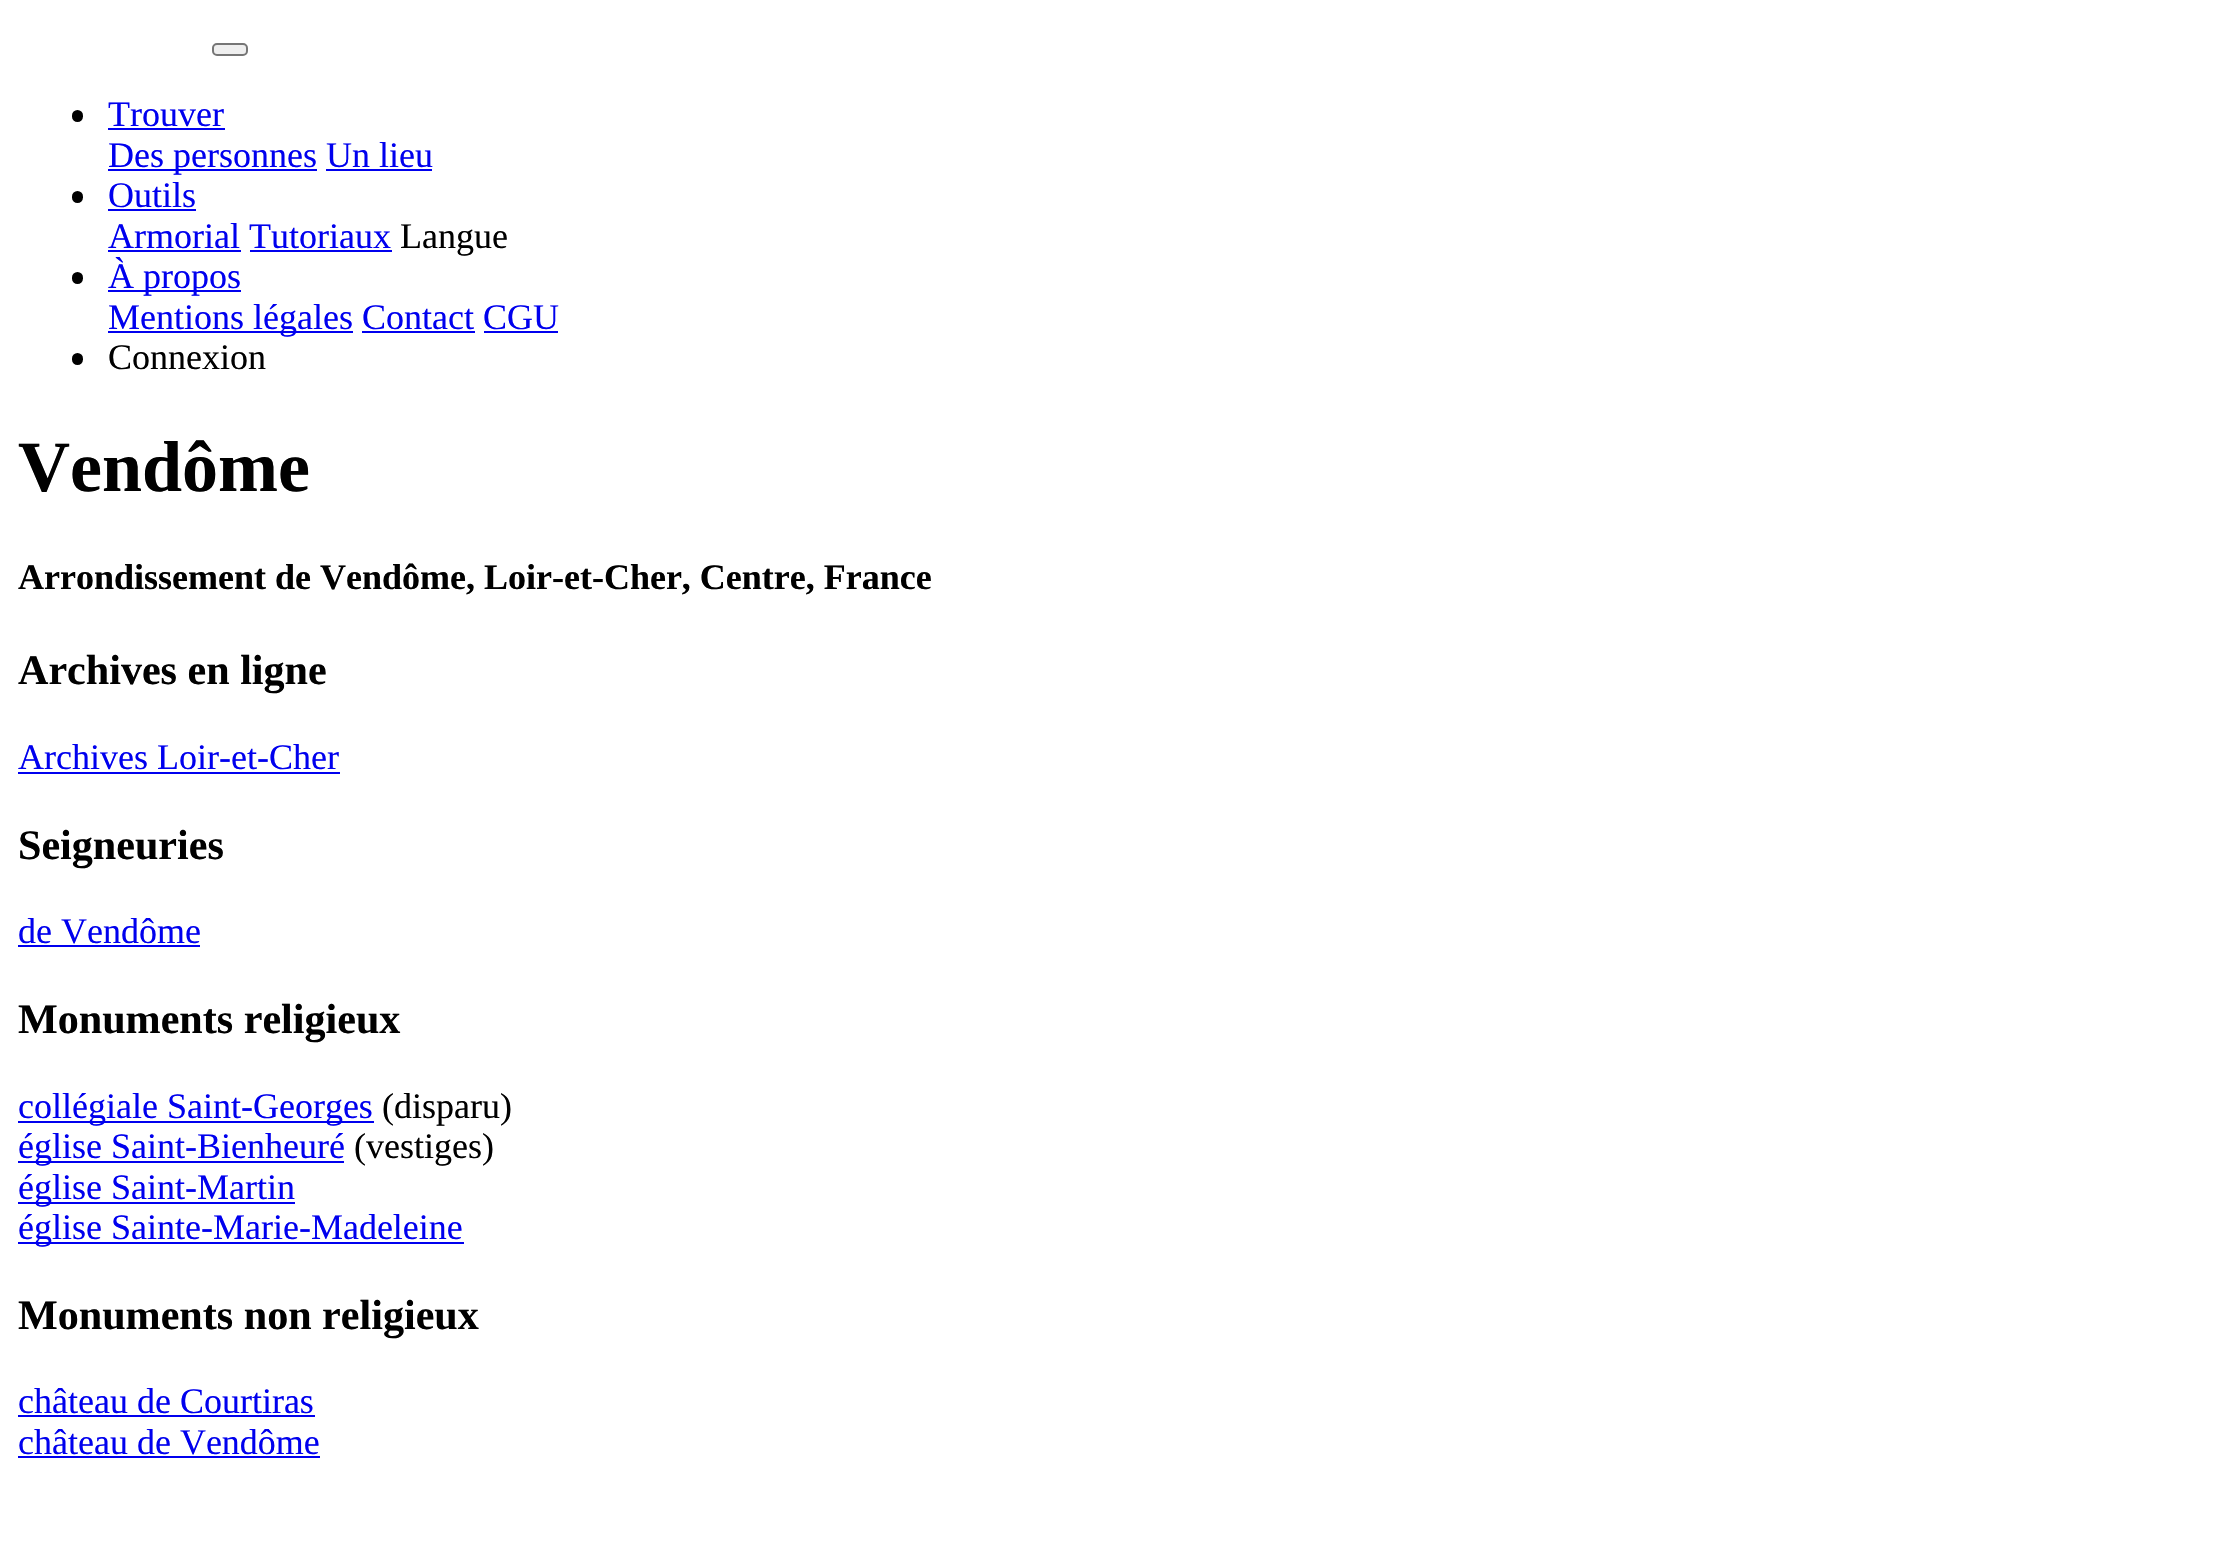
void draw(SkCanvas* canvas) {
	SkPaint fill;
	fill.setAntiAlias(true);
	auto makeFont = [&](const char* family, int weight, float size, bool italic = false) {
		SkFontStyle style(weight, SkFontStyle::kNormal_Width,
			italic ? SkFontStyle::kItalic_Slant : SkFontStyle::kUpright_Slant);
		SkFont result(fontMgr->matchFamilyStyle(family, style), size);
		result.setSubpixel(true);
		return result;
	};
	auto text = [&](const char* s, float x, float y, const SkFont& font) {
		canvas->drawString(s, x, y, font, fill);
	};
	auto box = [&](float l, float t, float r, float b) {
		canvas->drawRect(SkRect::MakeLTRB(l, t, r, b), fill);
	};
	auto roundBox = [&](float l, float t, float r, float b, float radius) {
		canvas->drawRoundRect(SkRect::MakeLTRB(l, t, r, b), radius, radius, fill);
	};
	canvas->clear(0xFFFFFFFF);
	fill.setColor(0xFFEFEFEF);
	canvas->drawRoundRect(SkRect::MakeLTRB(213, 44, 247, 55), 4, 4, fill);
	fill.setStyle(SkPaint::kStroke_Style);
	fill.setStrokeWidth(2);
	fill.setColor(0xFF767676);
	canvas->drawRoundRect(SkRect::MakeLTRB(213, 44, 247, 55), 4, 4, fill);
	fill.setStyle(SkPaint::kFill_Style);
	fill.setColor(0xFF000000);
	roundBox(72, 110, 83, 122, 5.5f);
	fill.setColor(0xFF0000EE);
	box(108, 128, 225, 130);
	box(108, 169, 317, 171);
	box(326, 169, 432, 171);
	fill.setColor(0xFF000000);
	roundBox(72, 191, 83, 203, 5.5f);
	fill.setColor(0xFF0000EE);
	box(108, 209, 196, 211);
	box(108, 250, 241, 252);
	box(250, 250, 392, 252);
	fill.setColor(0xFF000000);
	roundBox(72, 272, 83, 284, 5.5f);
	fill.setColor(0xFF0000EE);
	box(108, 290, 241, 292);
	box(108, 331, 353, 333);
	box(362, 331, 475, 333);
	box(484, 331, 558, 333);
	fill.setColor(0xFF000000);
	roundBox(72, 353, 83, 365, 5.5f);
	fill.setColor(0xFF0000EE);
	box(18, 772, 340, 774);
	box(18, 945, 200, 947);
	box(18, 1121, 374, 1123);
	box(18, 1161, 344, 1163);
	box(18, 1202, 295, 1204);
	box(18, 1242, 464, 1244);
	box(18, 1415, 315, 1417);
	box(18, 1456, 320, 1458);
	auto font1 = makeFont("Liberation Serif", 400, 36);
	text("Trouver", 108, 126, font1);
	text("Des personnes Un lieu", 108, 167, font1);
	text("Outils", 108, 207, font1);
	text("Armorial Tutoriaux", 108, 248, font1);
	fill.setColor(0xFF000000);
	text("Langue", 400, 248, font1);
	fill.setColor(0xFF0000EE);
	text("À propos", 108, 288, font1);
	text("Mentions légales Contact CGU", 108, 329, font1);
	fill.setColor(0xFF000000);
	text("Connexion", 108, 369, font1);
	auto font2 = makeFont("Liberation Serif", 700, 72);
	text("Vendôme", 18, 491, font2);
	auto font3 = makeFont("Liberation Serif", 700, 36);
	text("Arrondissement de Vendôme, Loir-et-Cher, Centre, France", 18, 589, font3);
	auto font4 = makeFont("Liberation Serif", 700, 42.1f);
	text("Archives en ligne", 18, 684, font4);
	fill.setColor(0xFF0000EE);
	text("Archives Loir-et-Cher", 18, 769, font1);
	fill.setColor(0xFF000000);
	text("Seigneuries", 18, 859, font4);
	fill.setColor(0xFF0000EE);
	text("de Vendôme", 18, 943, font1);
	fill.setColor(0xFF000000);
	text("Monuments religieux", 18, 1033, font4);
	fill.setColor(0xFF0000EE);
	text("collégiale Saint-Georges", 18, 1118, font1);
	fill.setColor(0xFF000000);
	text("(disparu)", 382, 1118, font1);
	fill.setColor(0xFF0000EE);
	text("église Saint-Bienheuré", 18, 1158, font1);
	fill.setColor(0xFF000000);
	text("(vestiges)", 354, 1158, font1);
	fill.setColor(0xFF0000EE);
	text("église Saint-Martin", 18, 1199, font1);
	text("église Sainte-Marie-Madeleine", 18, 1239, font1);
	fill.setColor(0xFF000000);
	text("Monuments non religieux", 18, 1329, font4);
	fill.setColor(0xFF0000EE);
	text("château de Courtiras", 18, 1413, font1);
	text("château de Vendôme", 18, 1454, font1);
}
